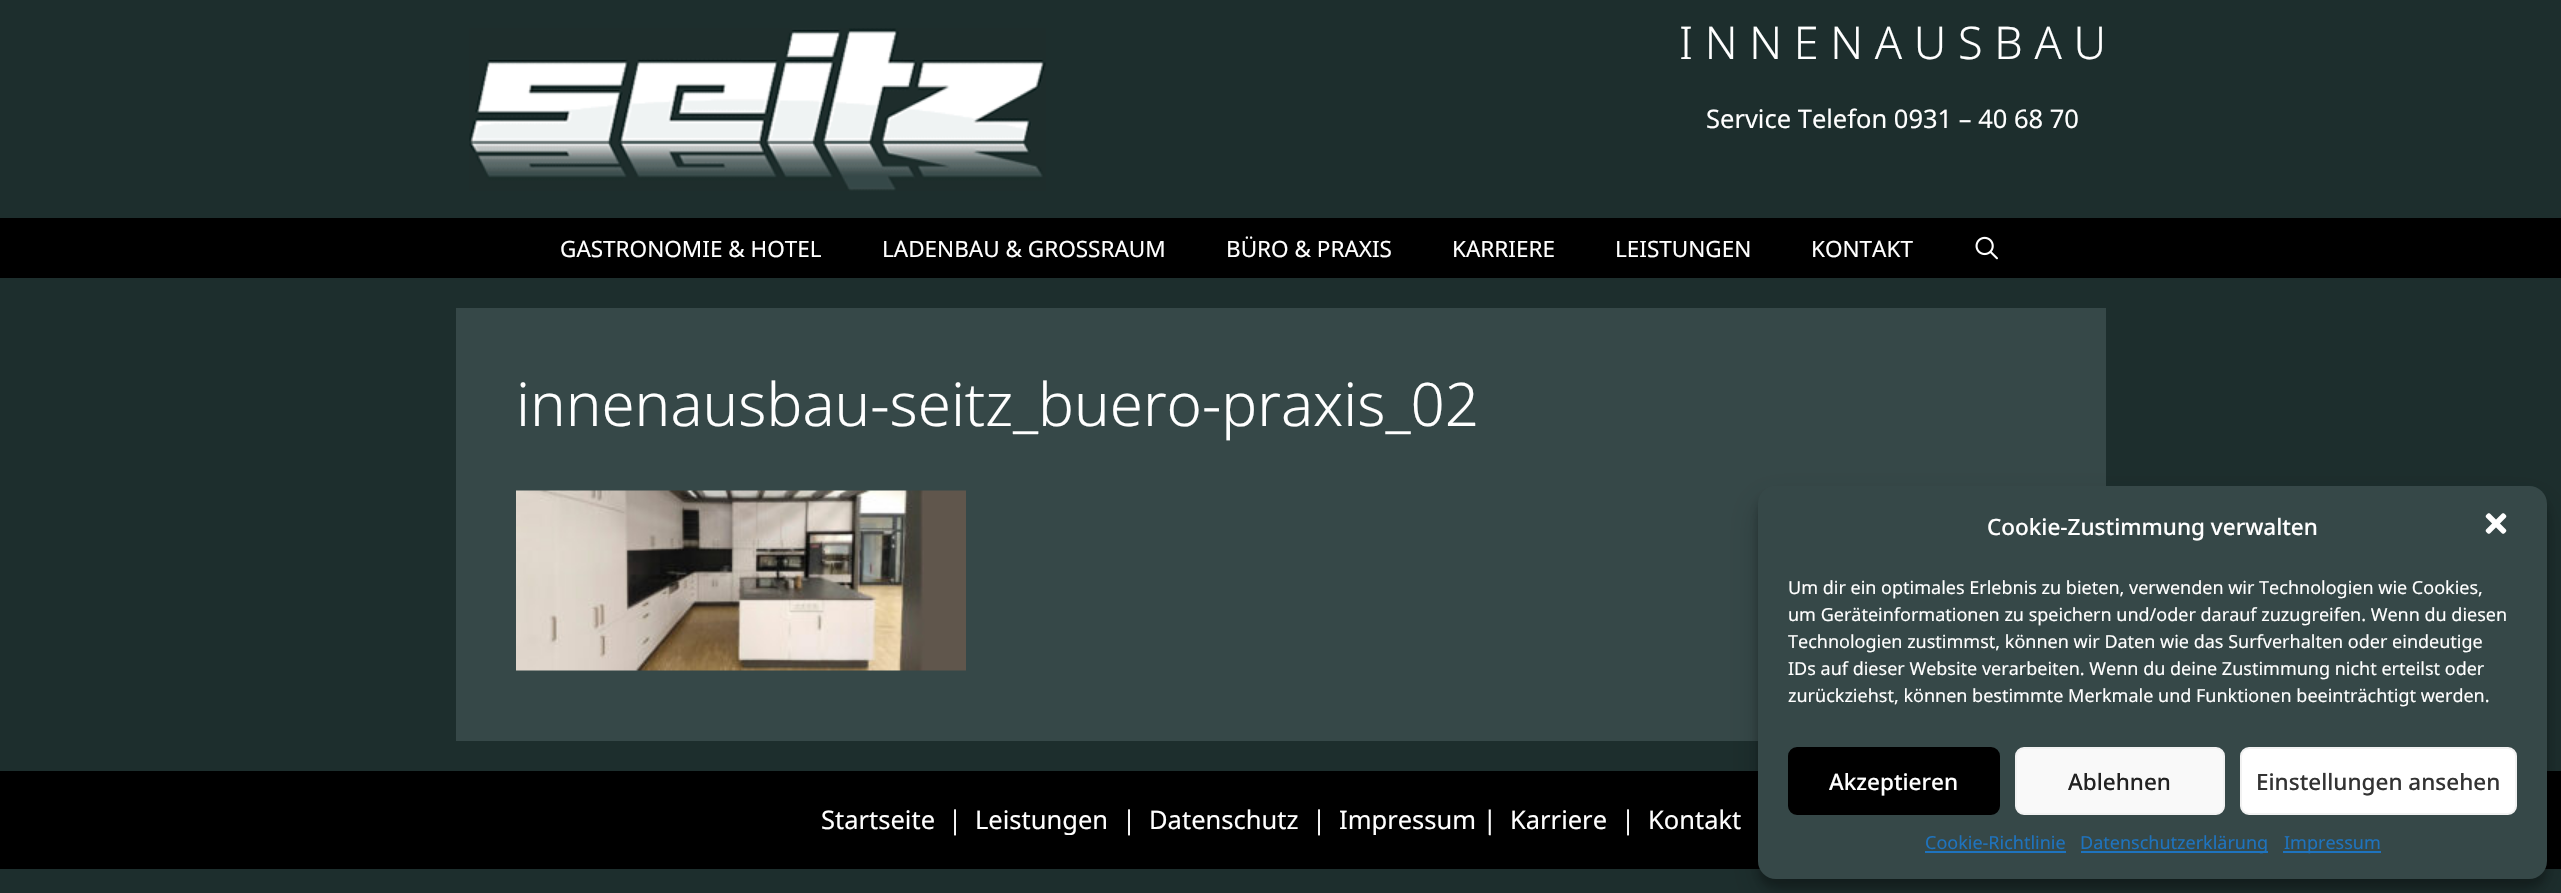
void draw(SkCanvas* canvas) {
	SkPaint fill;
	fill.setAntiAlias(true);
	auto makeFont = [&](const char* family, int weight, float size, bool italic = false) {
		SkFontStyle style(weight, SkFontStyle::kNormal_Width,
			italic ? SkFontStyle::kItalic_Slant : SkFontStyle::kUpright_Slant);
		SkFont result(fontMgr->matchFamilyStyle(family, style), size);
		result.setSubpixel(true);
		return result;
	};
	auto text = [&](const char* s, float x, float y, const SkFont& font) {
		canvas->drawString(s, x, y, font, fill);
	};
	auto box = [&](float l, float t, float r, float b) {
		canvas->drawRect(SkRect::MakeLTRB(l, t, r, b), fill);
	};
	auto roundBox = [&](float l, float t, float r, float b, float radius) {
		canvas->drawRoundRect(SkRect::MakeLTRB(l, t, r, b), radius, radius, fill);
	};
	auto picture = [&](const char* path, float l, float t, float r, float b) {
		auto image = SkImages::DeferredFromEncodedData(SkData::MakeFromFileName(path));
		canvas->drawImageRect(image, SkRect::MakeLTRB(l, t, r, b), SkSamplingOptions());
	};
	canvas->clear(0xFF1D2E2D);
	picture("image0.png", 469, 28, 1046, 191);
	fill.setColor(0xFF000000);
	box(0, 218, 2561, 278);
	picture("image1.png", 1975, 236, 1998, 260);
	fill.setColor(0xFF364848);
	box(456, 308, 2106, 741);
	picture("image2.png", 516, 490, 966, 671);
	fill.setColor(0xFF000000);
	box(0, 771, 2561, 869);
	fill.setColor(0x3B000000);
	fill.setMaskFilter(SkMaskFilter::MakeBlur(kNormal_SkBlurStyle, 4.5f));
	canvas->drawRoundRect(SkRect::MakeLTRB(1758, 495, 2547, 888), 18, 18, fill);
	fill.setMaskFilter(nullptr);
	fill.setColor(0x30000000);
	fill.setMaskFilter(SkMaskFilter::MakeBlur(kNormal_SkBlurStyle, 15));
	canvas->drawRoundRect(SkRect::MakeLTRB(1758, 501, 2547, 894), 18, 18, fill);
	fill.setMaskFilter(nullptr);
	fill.setColor(0xFF364848);
	roundBox(1758, 486, 2547, 879, 18);
	picture("image3.png", 2485, 513, 2507, 534);
	fill.setColor(0xFF000000);
	canvas->drawRoundRect(SkRect::MakeLTRB(1789, 748, 1999, 814), 8, 8, fill);
	fill.setStyle(SkPaint::kStroke_Style);
	fill.setStrokeWidth(2);
	canvas->drawRoundRect(SkRect::MakeLTRB(1789, 748, 1999, 814), 8, 8, fill);
	fill.setStyle(SkPaint::kFill_Style);
	fill.setColor(0xFFF9F9F9);
	canvas->drawRoundRect(SkRect::MakeLTRB(2016, 748, 2224, 814), 8, 8, fill);
	fill.setStyle(SkPaint::kStroke_Style);
	fill.setColor(0xFFF2F2F2);
	canvas->drawRoundRect(SkRect::MakeLTRB(2016, 748, 2224, 814), 8, 8, fill);
	fill.setStyle(SkPaint::kFill_Style);
	fill.setColor(0xFFFFFFFF);
	canvas->drawRoundRect(SkRect::MakeLTRB(2241, 748, 2516, 814), 8, 8, fill);
	fill.setStyle(SkPaint::kStroke_Style);
	fill.setColor(0xFFF2F2F2);
	canvas->drawRoundRect(SkRect::MakeLTRB(2241, 748, 2516, 814), 8, 8, fill);
	fill.setStyle(SkPaint::kFill_Style);
	fill.setColor(0xFF1E73BE);
	box(1925, 851, 2066, 853);
	box(2081, 851, 2268, 853);
	box(2283, 851, 2381, 853);
	auto font1 = makeFont("Noto Sans", 300, 45);
	fill.setColor(0xFFFFFFFF);
	text("I N N E N A U S B A U", 1679, 59, font1);
	auto font2 = makeFont("Noto Sans", 400, 25.5f);
	text("Service Telefon 0931 – 40 68 70", 1706, 128, font2);
	auto font3 = makeFont("Noto Sans", 400, 22.5f);
	text("GASTRONOMIE & HOTEL", 560, 257, font3);
	text("LADENBAU & GROSSRAUM", 882, 257, font3);
	text("BÜRO & PRAXIS", 1226, 257, font3);
	text("KARRIERE", 1452, 257, font3);
	text("LEISTUNGEN", 1615, 257, font3);
	text("KONTAKT", 1811, 257, font3);
	auto font4 = makeFont("Noto Sans", 300, 60);
	text("innenausbau-seitz_buero-praxis_02", 516, 426, font4);
	text("Startseite", 821, 829, font2);
	text("|", 948, 829, font2);
	text("Leistungen", 975, 829, font2);
	text("|", 1122, 829, font2);
	text("Datenschutz", 1149, 829, font2);
	text("|", 1312, 829, font2);
	text("Impressum |", 1339, 829, font2);
	text("Karriere", 1510, 829, font2);
	text("|", 1621, 829, font2);
	text("Kontakt", 1648, 829, font2);
	auto font5 = makeFont("Noto Sans", 500, 22.5f);
	text("Cookie-Zustimmung verwalten", 1987, 535, font5);
	auto font6 = makeFont("Noto Sans", 400, 18);
	text("Um dir ein optimales Erlebnis zu bieten, verwenden wir Technologien wie Cookies,", 1788, 594, font6);
	text("um Geräteinformationen zu speichern und/oder darauf zuzugreifen. Wenn du diesen", 1788, 621, font6);
	text("Technologien zustimmst, können wir Daten wie das Surfverhalten oder eindeutige", 1788, 648, font6);
	text("IDs auf dieser Website verarbeiten. Wenn du deine Zustimmung nicht erteilst oder", 1788, 675, font6);
	text("zurückziehst, können bestimmte Merkmale und Funktionen beeinträchtigt werden.", 1788, 702, font6);
	text("Akzeptieren", 1829, 790, font5);
	fill.setColor(0xFF222222);
	text("Ablehnen", 2068, 790, font5);
	fill.setColor(0xFF333333);
	text("Einstellungen ansehen", 2256, 790, font5);
	fill.setColor(0xFF1E73BE);
	text("Cookie-Richtlinie", 1925, 849, font6);
	text("Datenschutzerklärung", 2080, 849, font6);
	text("Impressum", 2284, 849, font6);
}
